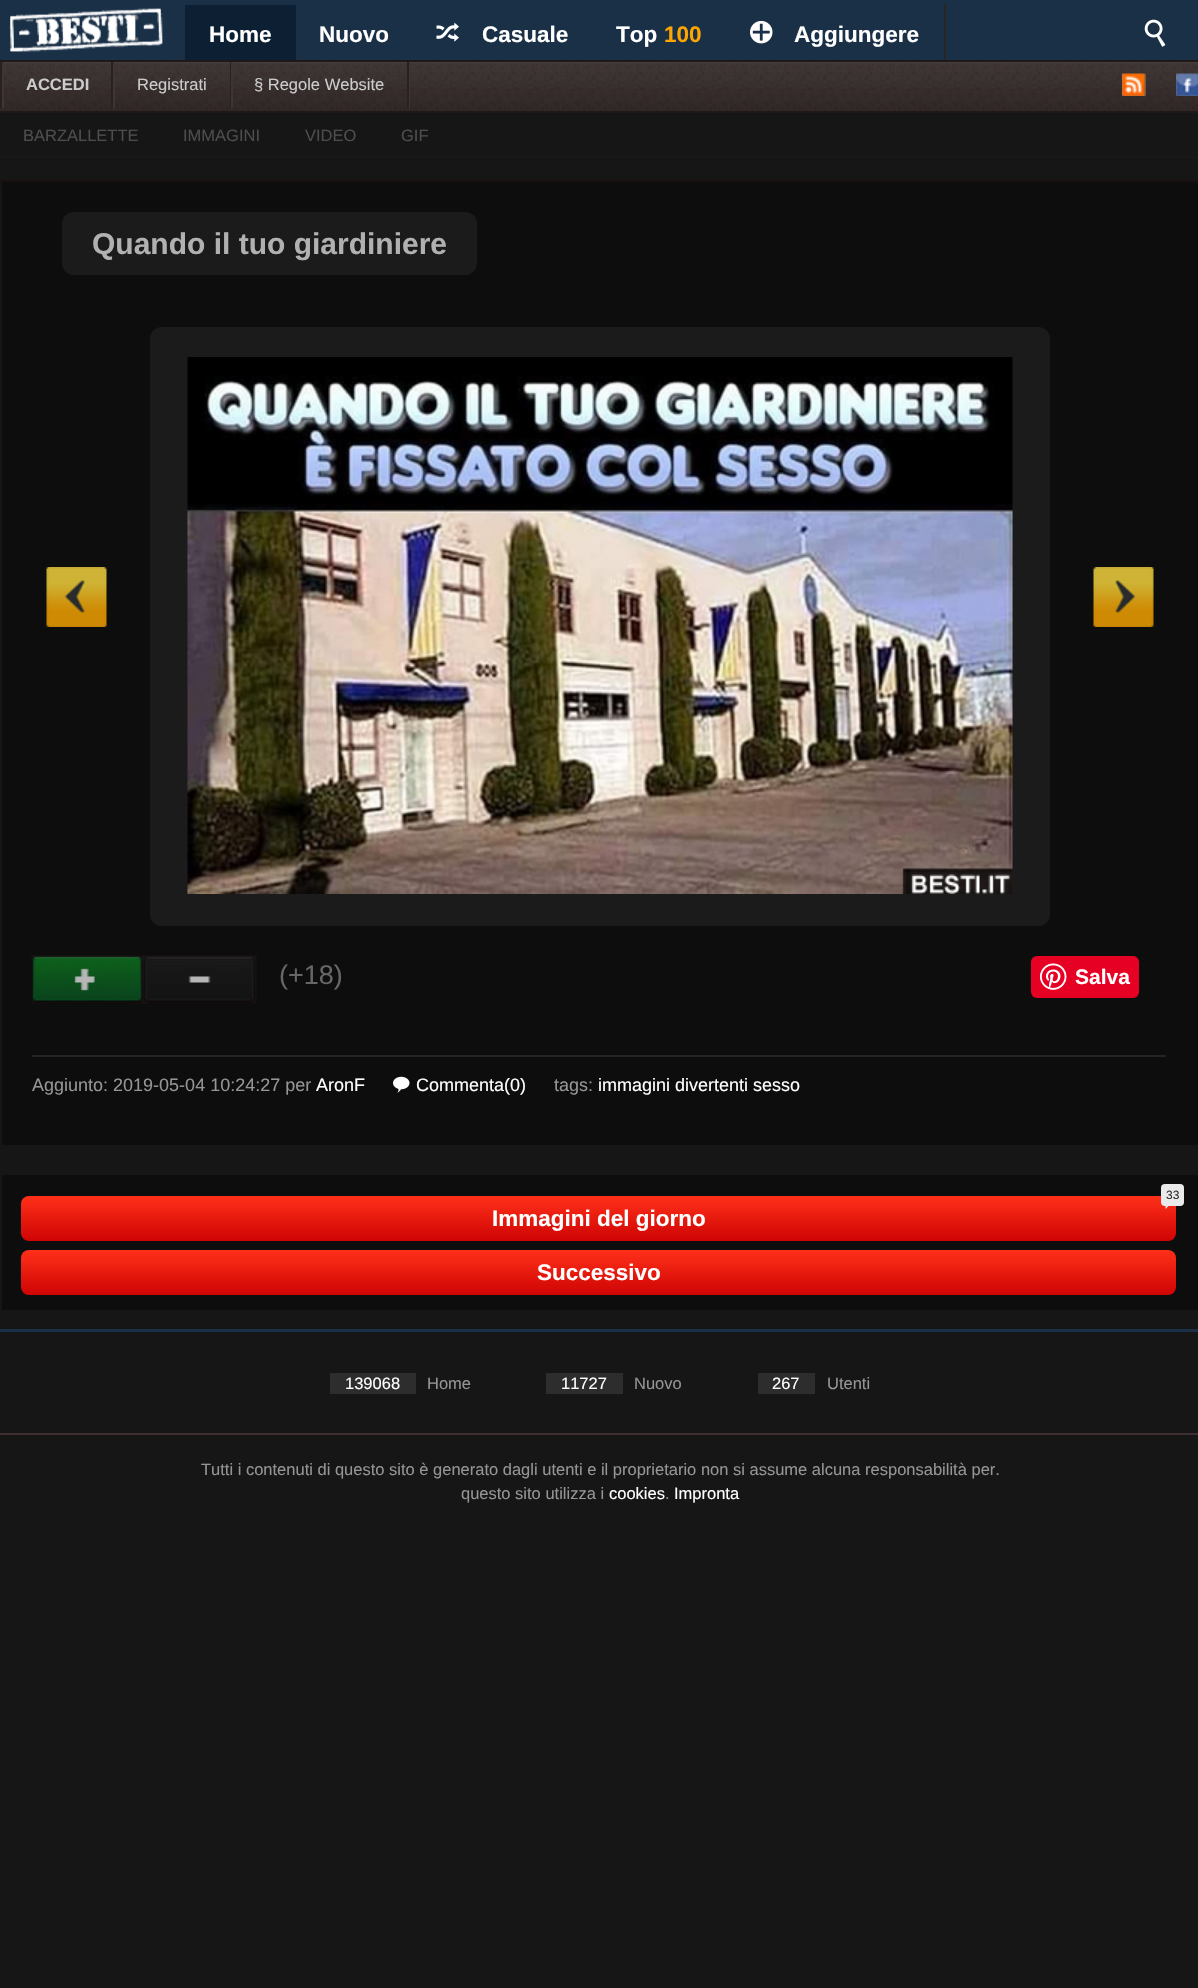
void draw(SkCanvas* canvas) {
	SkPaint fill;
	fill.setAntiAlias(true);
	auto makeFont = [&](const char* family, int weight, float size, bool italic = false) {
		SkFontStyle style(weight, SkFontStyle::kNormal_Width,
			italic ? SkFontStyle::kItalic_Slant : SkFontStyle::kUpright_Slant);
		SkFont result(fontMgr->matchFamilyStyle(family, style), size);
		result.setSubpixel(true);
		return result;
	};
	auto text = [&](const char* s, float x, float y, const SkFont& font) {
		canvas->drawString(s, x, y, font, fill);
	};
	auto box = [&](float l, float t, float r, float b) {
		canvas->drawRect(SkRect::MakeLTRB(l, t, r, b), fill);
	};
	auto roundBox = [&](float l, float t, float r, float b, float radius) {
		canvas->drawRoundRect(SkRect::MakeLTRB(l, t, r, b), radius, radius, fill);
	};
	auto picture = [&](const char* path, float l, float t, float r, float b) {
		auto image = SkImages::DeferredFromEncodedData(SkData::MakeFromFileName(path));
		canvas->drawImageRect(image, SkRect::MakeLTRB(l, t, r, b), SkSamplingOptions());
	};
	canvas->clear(0xFF161616);
	fill.setColor(0xFF1A3047);
	box(0, 0, 1198, 60);
	fill.setColor(0xFF262626);
	box(944, 3, 946, 60);
	picture("image0.png", 9, 8, 163, 52);
	picture("image1.png", 9, 8, 163, 52);
	picture("image2.png", 6, 13, 10, 15);
	fill.setColor(0xFF0C1F33);
	box(185, 5, 296, 60);
	picture("image3.png", 436, 22, 459, 42);
	picture("image4.png", 750, 20, 773, 44);
	picture("image5.png", 1144, 19, 1166, 47);
	picture("image6.png", 0, 62, 1198, 111);
	fill.setColor(0xFF1F1819);
	box(0, 60, 1198, 62);
	fill.setColor(0xFF3F3535);
	box(409, 62, 410, 108);
	fill.setColor(0xFF282121);
	box(0, 62, 2, 108);
	box(111, 62, 113, 108);
	fill.setColor(0xFF3F3535);
	box(2, 62, 4, 108);
	fill.setColor(0xFF282121);
	box(230, 62, 231, 108);
	fill.setColor(0xFF3F3535);
	box(113, 62, 115, 108);
	fill.setColor(0xFF282121);
	box(407, 62, 409, 108);
	fill.setColor(0xFF3F3535);
	box(231, 62, 233, 108);
	picture("image7.png", 1122, 73, 1146, 96);
	picture("image8.png", 1176, 73, 1198, 96);
	fill.setColor(0xFF1F1819);
	box(0, 111, 1198, 113);
	fill.setColor(0xFF191717);
	box(0, 156, 1198, 158);
	fill.setStyle(SkPaint::kStroke_Style);
	fill.setStrokeWidth(2);
	fill.setColor(0xFF1B1010);
	canvas->drawRect(SkRect::MakeLTRB(1, 181, 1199, 184), fill);
	fill.setStyle(SkPaint::kFill_Style);
	fill.setColor(0xFF0D0D0D);
	box(2, 182, 1198, 1145);
	fill.setColor(0xFF1B1B1B);
	roundBox(62, 212, 477, 275, 12);
	picture("image9.png", 46, 567, 107, 627);
	roundBox(150, 327, 1050, 926, 12);
	picture("image10.png", 187, 357, 1013, 894);
	picture("image11.png", 1093, 567, 1154, 627);
	picture("image12.png", 31, 955, 144, 1004);
	picture("image13.png", 144, 955, 257, 1004);
	fill.setColor(0xFFE60023);
	roundBox(1031, 956, 1139, 998, 6);
	picture("image14.png", 1040, 963, 1067, 990);
	fill.setColor(0xFF242424);
	box(32, 1055, 1166, 1057);
	picture("image15.png", 393, 1076, 410, 1093);
	fill.setColor(0xFF0D0D0D);
	box(2, 1175, 1198, 1310);
	{
		const SkColor colors[] = {0xFFFF3019, 0xFFCF0404};
		const float stops[] = {0, 1};
		const SkPoint ends[] = {{599, 1196}, {599, 1241}};
		fill.setShader(SkGradientShader::MakeLinear(ends, colors, stops, 2, SkTileMode::kClamp));
		fill.setAlpha(255);
	}
	roundBox(21, 1196, 1176, 1241, 8);
	fill.setShader(nullptr);
	fill.setColor(0xFFEAEAEA);
	roundBox(1161, 1184, 1184, 1206, 4);
	canvas->drawPath(SkPathBuilder().moveTo(1165.5f, 1201.5f).lineTo(1173, 1201.5f).lineTo(1165.5f, 1209).close().detach(), fill);
	{
		const SkColor colors[] = {0xFFFF3019, 0xFFCF0404};
		const float stops[] = {0, 1};
		const SkPoint ends[] = {{599, 1250}, {599, 1295}};
		fill.setShader(SkGradientShader::MakeLinear(ends, colors, stops, 2, SkTileMode::kClamp));
		fill.setAlpha(255);
	}
	roundBox(21, 1250, 1176, 1295, 8);
	fill.setShader(nullptr);
	fill.setColor(0xFF1A3047);
	box(0, 1329, 1198, 1332);
	fill.setColor(0xFF2D2D2D);
	box(330, 1373, 416, 1394);
	box(546, 1373, 623, 1394);
	box(758, 1373, 815, 1394);
	fill.setColor(0xFF3E3030);
	box(0, 1433, 1198, 1435);
	auto font1 = makeFont("Liberation Sans", 700, 22.5f);
	fill.setColor(0xFFFFFFFF);
	text("Home", 209, 42, font1);
	text("Nuovo", 319, 42, font1);
	text("Casuale", 482, 42, font1);
	text("Top", 616, 42, font1);
	fill.setColor(0xFFFFA500);
	text("100", 664, 42, font1);
	fill.setColor(0xFFFFFFFF);
	text("Aggiungere", 794, 42, font1);
	auto font2 = makeFont("Liberation Sans", 700, 16.5f);
	fill.setColor(0xFFCCCCCC);
	text("ACCEDI", 26, 90, font2);
	auto font3 = makeFont("Liberation Sans", 400, 16.5f);
	text("Registrati", 137, 90, font3);
	text("§ Regole Website", 254, 90, font3);
	fill.setColor(0xFF4D4D4D);
	text("BARZALLETTE", 23, 141, font3);
	text("IMMAGINI", 183, 141, font3);
	text("VIDEO", 305, 141, font3);
	text("GIF", 401, 141, font3);
	auto font4 = makeFont("Liberation Sans", 700, 30);
	fill.setColor(0xFFB1B1B1);
	text("Quando il tuo giardiniere", 92, 254, font4);
	auto font5 = makeFont("Liberation Sans", 400, 27);
	fill.setColor(0xFF666666);
	text("(+18)", 279, 984, font5);
	auto font6 = makeFont("Liberation Sans", 700, 21);
	fill.setColor(0xFFFFFFFF);
	text("Salva", 1075, 984, font6);
	auto font7 = makeFont("Liberation Sans", 400, 18);
	fill.setColor(0xFF959595);
	text("Aggiunto: 2019-05-04 10:24:27 per", 32, 1091, font7);
	fill.setColor(0xFFFFFFFF);
	text("AronF", 316, 1091, font7);
	text("Commenta(0)", 416, 1091, font7);
	fill.setColor(0xFF959595);
	text("tags:", 554, 1091, font7);
	fill.setColor(0xFFFFFFFF);
	text("immagini divertenti sesso", 598, 1091, font7);
	auto font8 = makeFont("Liberation Sans", 400, 12);
	fill.setColor(0xFF333333);
	text("33", 1166, 1199, font8);
	fill.setColor(0xFFFFFFFF);
	text("Immagini del giorno", 492, 1226, font1);
	text("Successivo", 537, 1280, font1);
	text("139068", 345, 1389, font3);
	fill.setColor(0xFF959595);
	text("Home", 427, 1389, font3);
	fill.setColor(0xFFFFFFFF);
	text("11727", 561, 1389, font3);
	fill.setColor(0xFF959595);
	text("Nuovo", 634, 1389, font3);
	fill.setColor(0xFFFFFFFF);
	text("267", 772, 1389, font3);
	fill.setColor(0xFF959595);
	text("Utenti", 827, 1389, font3);
	text("Tutti i contenuti di questo sito è generato dagli utenti e il proprietario non si assume alcuna responsabilità per.", 201, 1475, font3);
	text("questo sito utilizza i", 461, 1499, font3);
	fill.setColor(0xFFFFFFFF);
	text("cookies", 609, 1499, font3);
	fill.setColor(0xFF959595);
	text(".", 665, 1499, font3);
	fill.setColor(0xFFFFFFFF);
	text("Impronta", 674, 1499, font3);
}
